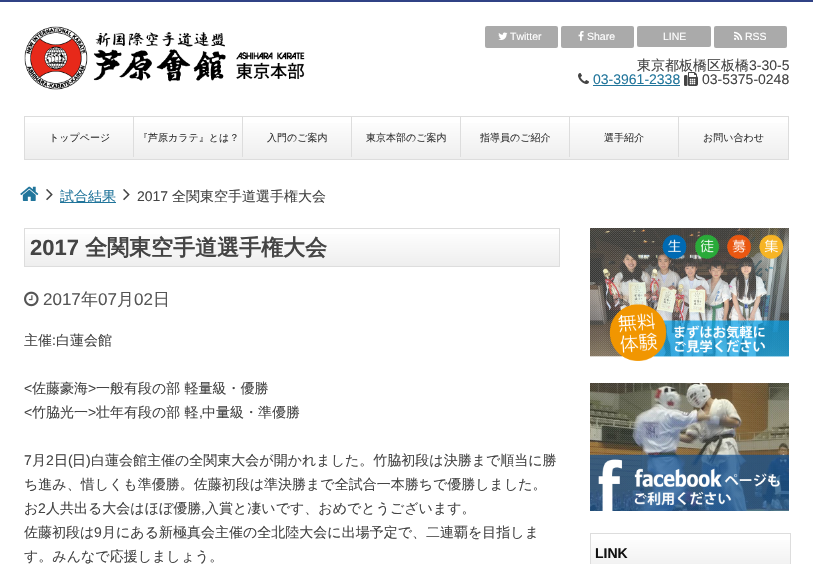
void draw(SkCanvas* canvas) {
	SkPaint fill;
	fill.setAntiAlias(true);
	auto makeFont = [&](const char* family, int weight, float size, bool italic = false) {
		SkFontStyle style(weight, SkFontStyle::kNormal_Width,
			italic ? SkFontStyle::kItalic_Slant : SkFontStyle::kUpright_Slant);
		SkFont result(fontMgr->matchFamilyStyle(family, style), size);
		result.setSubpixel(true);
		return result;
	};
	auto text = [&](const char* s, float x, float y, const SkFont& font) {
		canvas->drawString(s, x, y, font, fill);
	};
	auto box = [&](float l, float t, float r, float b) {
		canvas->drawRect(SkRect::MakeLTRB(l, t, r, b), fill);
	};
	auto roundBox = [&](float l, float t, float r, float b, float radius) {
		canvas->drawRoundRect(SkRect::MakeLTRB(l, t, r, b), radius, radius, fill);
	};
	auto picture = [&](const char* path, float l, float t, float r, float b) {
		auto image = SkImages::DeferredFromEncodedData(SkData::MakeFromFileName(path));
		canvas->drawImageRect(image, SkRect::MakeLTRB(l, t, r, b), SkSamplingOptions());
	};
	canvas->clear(0xFFFFFFFF);
	fill.setColor(0xFF304285);
	box(0, 0, 813, 2);
	picture("image0.png", 24, 26, 305, 90);
	fill.setColor(0xFFAAAAAA);
	roundBox(485, 26, 558, 48, 2);
	picture("image1.png", 498, 32, 508, 40);
	roundBox(561, 26, 634, 48, 2);
	picture("image2.png", 578, 31, 584, 41);
	roundBox(637, 26, 711, 47, 2);
	roundBox(714, 26, 787, 48, 2);
	picture("image3.png", 734, 31, 743, 40);
	picture("image4.png", 578, 73, 589, 84);
	fill.setColor(0xFF21759B);
	box(593, 85, 680, 86);
	picture("image5.png", 684, 72, 698, 86);
	{
		const SkColor colors[] = {0xFFFFFFFF, 0xFFEEEEEE};
		const float stops[] = {0, 1};
		const SkPoint ends[] = {{407, 117}, {407, 159}};
		fill.setShader(SkGradientShader::MakeLinear(ends, colors, stops, 2, SkTileMode::kClamp));
		fill.setAlpha(255);
	}
	box(25, 123, 788, 159);
	fill.setStyle(SkPaint::kStroke_Style);
	fill.setStrokeWidth(1);
	fill.setShader(nullptr);
	fill.setColor(0xFFDDDDDD);
	canvas->drawRect(SkRect::MakeLTRB(24.5f, 116.5f, 788.5f, 159.5f), fill);
	fill.setStyle(SkPaint::kFill_Style);
	box(133, 117, 134, 157);
	box(242, 117, 243, 157);
	box(351, 117, 352, 157);
	box(460, 117, 461, 157);
	box(569, 117, 570, 157);
	box(678, 117, 679, 157);
	picture("image6.png", 20, 186, 39, 201);
	picture("image7.png", 46, 189, 53, 201);
	fill.setColor(0xFF21759B);
	box(60, 202, 116, 203);
	picture("image7.png", 123, 189, 130, 201);
	{
		const SkColor colors[] = {0xFFFFFFFF, 0xFFEEEEEE};
		const float stops[] = {0, 1};
		const SkPoint ends[] = {{292, 229}, {292, 266}};
		fill.setShader(SkGradientShader::MakeLinear(ends, colors, stops, 2, SkTileMode::kClamp));
		fill.setAlpha(255);
	}
	box(25, 234, 559, 266);
	fill.setStyle(SkPaint::kStroke_Style);
	fill.setShader(nullptr);
	fill.setColor(0xFFDDDDDD);
	canvas->drawRect(SkRect::MakeLTRB(24.5f, 228.5f, 559.5f, 266.5f), fill);
	picture("image8.png", 24, 291, 39, 307);
	picture("image9.png", 590, 228, 789, 361);
	picture("image10.png", 590, 383, 789, 511);
	fill.setStyle(SkPaint::kFill_Style);
	{
		const SkColor colors[] = {0xFFFFFFFF, 0xFFEEEEEE};
		const float stops[] = {0, 1};
		const SkPoint ends[] = {{691, 534}, {691, 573}};
		fill.setShader(SkGradientShader::MakeLinear(ends, colors, stops, 2, SkTileMode::kClamp));
		fill.setAlpha(255);
	}
	box(591, 540, 790, 564);
	fill.setStyle(SkPaint::kStroke_Style);
	fill.setShader(nullptr);
	fill.setColor(0xFFDDDDDD);
	canvas->drawRect(SkRect::MakeLTRB(590.5f, 533.5f, 790.5f, 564.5f), fill);
	auto font1 = makeFont("Liberation Sans", 400, 10.5f);
	fill.setStyle(SkPaint::kFill_Style);
	fill.setColor(0xFFFFFFFF);
	text("Twitter", 510, 40, font1);
	text("Share", 587, 40, font1);
	text("LINE", 663, 40, font1);
	text("RSS", 745, 40, font1);
	auto font2 = makeFont("WenQuanYi Zen Hei", 500, 14);
	fill.setColor(0xFF444444);
	text("東京都板橋区板橋", 637, 70, font2);
	auto font3 = makeFont("Liberation Sans", 400, 14);
	text("3-30-5", 749, 70, font3);
	fill.setColor(0xFF21759B);
	text("03-3961-2338", 593, 84, font3);
	fill.setColor(0xFF444444);
	text("03-5375-0248", 702, 84, font3);
	auto font4 = makeFont("WenQuanYi Zen Hei", 500, 10);
	fill.setColor(0xFF333333);
	text("トップページ", 49, 141, font4);
	text("『芦原カラテ』とは？", 138, 141, font4);
	text("入門のご案内", 267, 141, font4);
	text("東京本部のご案内", 366, 141, font4);
	text("指導員のご紹介", 480, 141, font4);
	text("選手紹介", 604, 141, font4);
	text("お問い合わせ", 703, 141, font4);
	fill.setColor(0xFF21759B);
	text("試合結果", 60, 201, font2);
	fill.setColor(0xFF444444);
	text("2017", 137, 201, font3);
	text("全関東空手道選手権大会", 172, 201, font2);
	auto font5 = makeFont("Liberation Sans", 700, 22);
	text("2017", 30, 255, font5);
	auto font6 = makeFont("WenQuanYi Zen Hei", 700, 22);
	text("全関東空手道選手権大会", 85, 255, font6);
	auto font7 = makeFont("Liberation Sans", 400, 17);
	fill.setColor(0xFF555555);
	text("2017", 43, 305, font7);
	auto font8 = makeFont("WenQuanYi Zen Hei", 500, 17);
	text("年", 81, 305, font8);
	text("07", 98, 305, font7);
	text("月", 117, 305, font8);
	text("02", 134, 305, font7);
	text("日", 153, 305, font8);
	fill.setColor(0xFF444444);
	text("主催", 24, 345, font2);
	text(":", 52, 345, font3);
	text("白蓮会館", 56, 345, font2);
	text("<", 24, 393, font3);
	text("佐藤豪海", 32, 393, font2);
	text(">", 88, 393, font3);
	text("一般有段の部 軽量級・優勝", 96, 393, font2);
	text("<", 24, 417, font3);
	text("竹脇光一", 32, 417, font2);
	text(">", 88, 417, font3);
	text("壮年有段の部 軽", 96, 417, font2);
	text("中量級・準優勝", 202, 417, font2);
	text(",", 199, 417, font3);
	text("7", 24, 465, font3);
	text("月", 32, 465, font2);
	text("2", 46, 465, font3);
	text("日", 54, 465, font2);
	text("(", 68, 465, font3);
	text("日", 72, 465, font2);
	text(")", 86, 465, font3);
	text("白蓮会館主催の全関東大会が開かれました。竹脇初段は決勝まで順当に勝", 91, 465, font2);
	text("ち進み、惜しくも準優勝。佐藤初段は準決勝まで全試合一本勝ちで優勝しました。", 24, 489, font2);
	text("お", 24, 513, font2);
	text("2", 38, 513, font3);
	text("人共出る大会はほぼ優勝", 46, 513, font2);
	text(",", 201, 513, font3);
	text("入賞と凄いです、おめでとうございます。", 205, 513, font2);
	text("佐藤初段は", 24, 537, font2);
	text("9", 94, 537, font3);
	text("月にある新極真会主催の全北陸大会に出場予定で、二連覇を目指しま", 102, 537, font2);
	text("す。みんなで応援しましょう。", 24, 561, font2);
	auto font9 = makeFont("Liberation Sans", 700, 14);
	fill.setColor(0xFF111111);
	text("LINK", 595, 558, font9);
}
